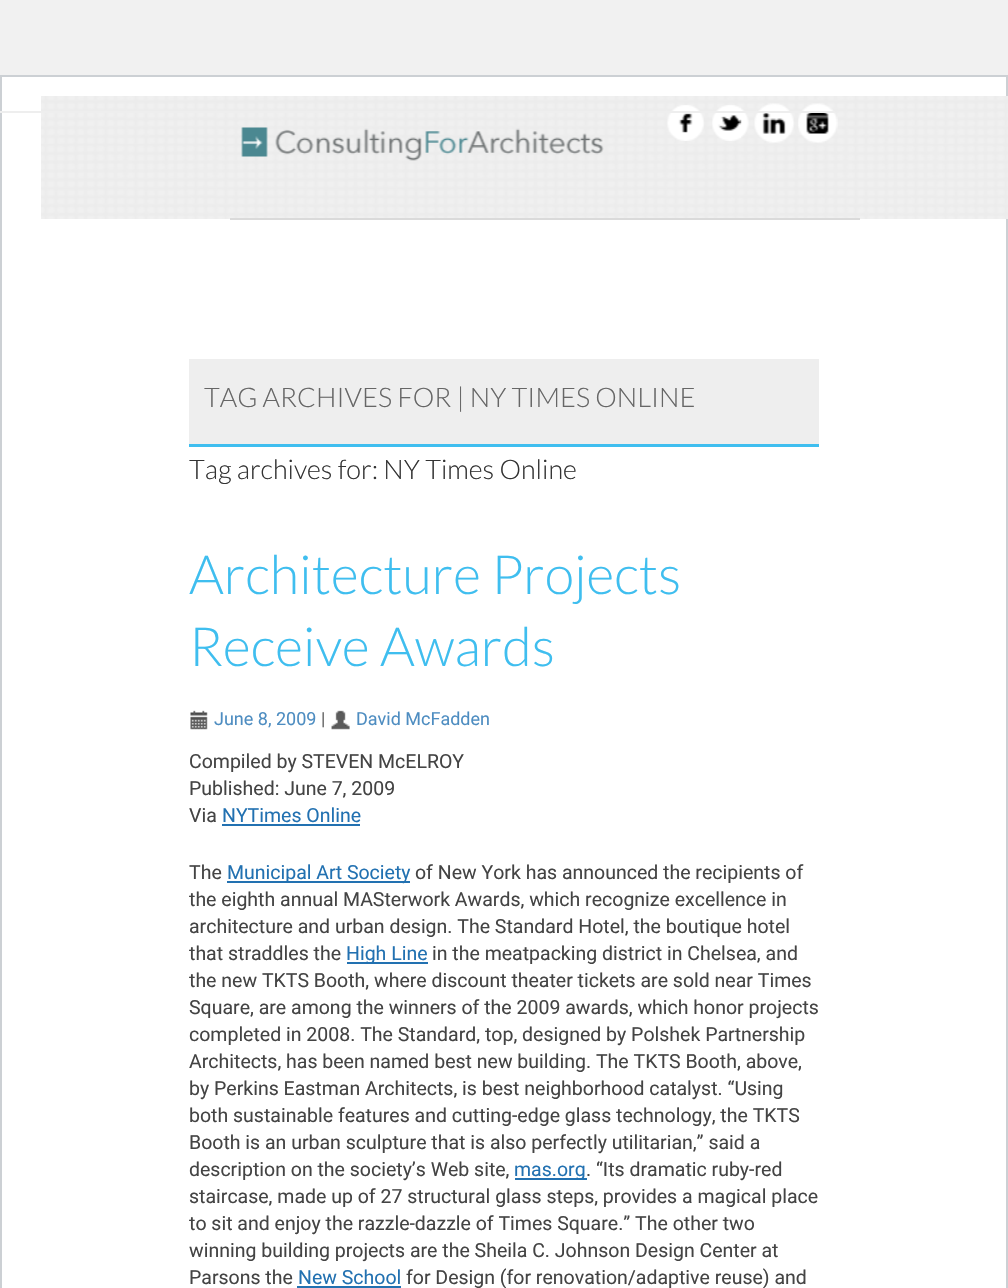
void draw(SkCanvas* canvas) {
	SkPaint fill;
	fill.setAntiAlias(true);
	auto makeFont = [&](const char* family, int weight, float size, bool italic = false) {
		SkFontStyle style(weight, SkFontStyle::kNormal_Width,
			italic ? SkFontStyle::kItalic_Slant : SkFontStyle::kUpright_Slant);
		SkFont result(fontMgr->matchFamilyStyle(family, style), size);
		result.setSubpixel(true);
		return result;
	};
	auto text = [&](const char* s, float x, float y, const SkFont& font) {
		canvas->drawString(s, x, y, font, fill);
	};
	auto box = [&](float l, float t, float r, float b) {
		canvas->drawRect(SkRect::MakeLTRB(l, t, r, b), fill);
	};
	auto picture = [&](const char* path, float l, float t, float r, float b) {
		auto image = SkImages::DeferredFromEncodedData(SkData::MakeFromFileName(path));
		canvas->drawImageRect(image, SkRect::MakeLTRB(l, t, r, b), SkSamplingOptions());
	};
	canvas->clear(0xFFF1F1F1);
	fill.setColor(0xFFFFFFFF);
	canvas->drawRect(SkRect::MakeLTRB(1, 76, 1007, 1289), fill);
	fill.setStyle(SkPaint::kStroke_Style);
	fill.setStrokeWidth(2);
	fill.setColor(0xFFCCD0D4);
	canvas->drawRect(SkRect::MakeLTRB(1, 76, 1007, 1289), fill);
	picture("image0.png", 41, 96, 1008, 219);
	picture("image1.png", 667, 105, 704, 141);
	picture("image2.png", 712, 105, 749, 141);
	picture("image3.png", 754, 103, 794, 143);
	picture("image4.png", 798, 103, 838, 143);
	fill.setStyle(SkPaint::kFill_Style);
	fill.setColor(0xFFDADADA);
	box(230, 218, 860, 220);
	picture("image5.png", 241, 127, 604, 161);
	fill.setColor(0xFFEEEEEE);
	box(0, 111, 835, 113);
	box(189, 359, 819, 444);
	fill.setColor(0xFF3FBEEF);
	box(189, 444, 819, 447);
	picture("image6.png", 190, 710, 208, 730);
	picture("image7.png", 331, 710, 350, 730);
	fill.setColor(0xFF2271B1);
	box(222, 824, 360, 826);
	box(227, 881, 410, 883);
	box(347, 962, 428, 964);
	box(515, 1178, 587, 1180);
	box(297, 1286, 401, 1288);
	auto font1 = makeFont("Lato", 300, 27);
	fill.setColor(0xFF666666);
	text("TAG ARCHIVES FOR | NY TIMES ONLINE", 204, 407, font1);
	fill.setColor(0xFF333333);
	text("Tag archives for: NY Times Online", 189, 479, font1);
	auto font2 = makeFont("Lato", 300, 54);
	fill.setColor(0xFF3FBEEF);
	text("Architecture Projects", 189, 594, font2);
	text("Receive Awards", 189, 666, font2);
	auto font3 = makeFont("Roboto", 400, 18);
	fill.setColor(0xFF4E8DC1);
	text("June 8, 2009", 214, 725, font3);
	fill.setColor(0xFF666666);
	text("|", 321, 725, font3);
	fill.setColor(0xFF4E8DC1);
	text("David McFadden", 356, 725, font3);
	auto font4 = makeFont("Roboto", 400, 19.5f);
	fill.setColor(0xFF444444);
	text("Compiled by STEVEN McELROY", 189, 768, font4);
	text("Published: June 7, 2009", 189, 795, font4);
	text("Via", 189, 822, font4);
	fill.setColor(0xFF2271B1);
	text("NYTimes Online", 222, 822, font4);
	fill.setColor(0xFF444444);
	text("The", 189, 879, font4);
	fill.setColor(0xFF2271B1);
	text("Municipal Art Society", 227, 879, font4);
	fill.setColor(0xFF444444);
	text("of New York has announced the recipients of", 415, 879, font4);
	text("the eighth annual MASterwork Awards, which recognize excellence in", 189, 906, font4);
	text("architecture and urban design. The Standard Hotel, the boutique hotel", 189, 933, font4);
	text("that straddles the", 189, 960, font4);
	fill.setColor(0xFF2271B1);
	text("High Line", 346, 960, font4);
	fill.setColor(0xFF444444);
	text("in the meatpacking district in Chelsea, and", 432, 960, font4);
	text("the new TKTS Booth, where discount theater tickets are sold near Times", 189, 987, font4);
	text("Square, are among the winners of the 2009 awards, which honor projects", 189, 1014, font4);
	text("completed in 2008. The Standard, top, designed by Polshek Partnership", 189, 1041, font4);
	text("Architects, has been named best new building. The TKTS Booth, above,", 189, 1068, font4);
	text("by Perkins Eastman Architects, is best neighborhood catalyst. “Using", 189, 1095, font4);
	text("both sustainable features and cutting-edge glass technology, the TKTS", 189, 1122, font4);
	text("Booth is an urban sculpture that is also perfectly utilitarian,” said a", 189, 1149, font4);
	text("description on the society’s Web site,", 189, 1176, font4);
	fill.setColor(0xFF2271B1);
	text("mas.org", 514, 1176, font4);
	fill.setColor(0xFF444444);
	text(". “Its dramatic ruby-red", 586, 1176, font4);
	text("staircase, made up of 27 structural glass steps, provides a magical place", 189, 1203, font4);
	text("to sit and enjoy the razzle-dazzle of Times Square.” The other two", 189, 1230, font4);
	text("winning building projects are the Sheila C. Johnson Design Center at", 189, 1257, font4);
	text("Parsons the", 189, 1284, font4);
	fill.setColor(0xFF2271B1);
	text("New School", 298, 1284, font4);
	fill.setColor(0xFF444444);
	text("for Design (for renovation/adaptive reuse) and", 406, 1284, font4);
}
